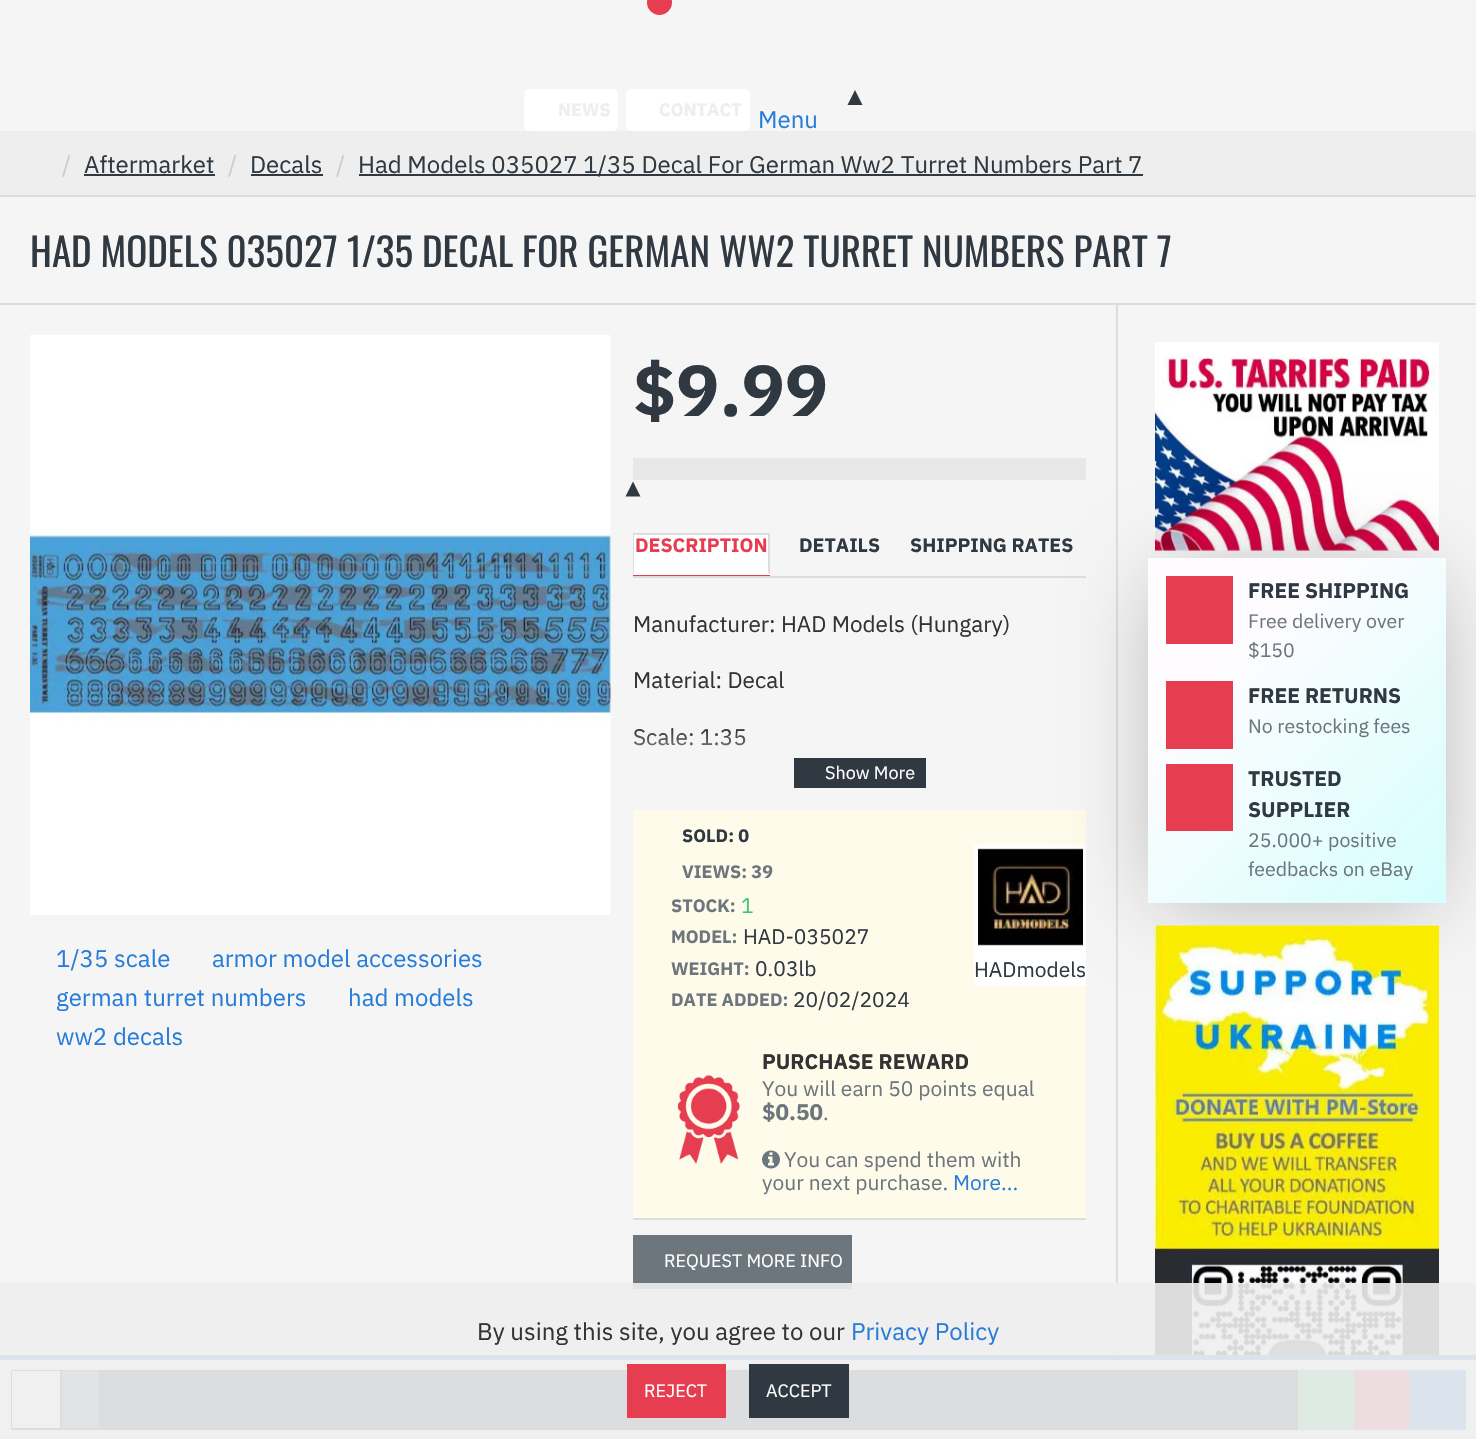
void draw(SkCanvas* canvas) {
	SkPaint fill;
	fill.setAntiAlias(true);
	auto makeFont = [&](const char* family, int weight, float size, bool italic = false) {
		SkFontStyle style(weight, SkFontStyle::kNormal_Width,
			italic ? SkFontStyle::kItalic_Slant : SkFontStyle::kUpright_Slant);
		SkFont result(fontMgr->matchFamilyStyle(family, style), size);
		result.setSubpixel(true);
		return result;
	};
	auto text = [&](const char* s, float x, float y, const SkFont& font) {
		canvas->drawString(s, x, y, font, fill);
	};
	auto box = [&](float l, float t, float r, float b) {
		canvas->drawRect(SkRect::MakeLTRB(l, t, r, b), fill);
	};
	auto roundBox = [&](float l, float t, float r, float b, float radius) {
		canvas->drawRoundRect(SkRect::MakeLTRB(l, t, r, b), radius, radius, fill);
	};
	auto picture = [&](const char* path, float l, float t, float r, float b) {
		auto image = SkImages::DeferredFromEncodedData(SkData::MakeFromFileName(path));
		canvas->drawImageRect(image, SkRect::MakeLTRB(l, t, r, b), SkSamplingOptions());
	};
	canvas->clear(0xFFF5F5F5);
	fill.setColor(0xFFE73D50);
	canvas->drawCircle(659.5f, 2.5f, 12.5f, fill);
	fill.setColor(0xFFFFFFFF);
	roundBox(524, 89, 618, 131, 5);
	roundBox(626, 89, 750, 131, 5);
	fill.setColor(0xFF303841);
	canvas->drawPath(SkPathBuilder().moveTo(862.5f, 105).lineTo(847.5f, 105).lineTo(855, 90).close().detach(), fill);
	fill.setColor(0xFFEEEEEE);
	box(0, 131, 1476, 195);
	fill.setColor(0xFFDDDDDD);
	box(0, 195, 1476, 197);
	fill.setColor(0xFF303841);
	box(84, 174, 215, 176);
	box(251, 174, 323, 176);
	box(359, 174, 1143, 176);
	fill.setColor(0xFFDDDDDD);
	box(0, 303, 1476, 305);
	picture("image0.png", 30, 335, 611, 915);
	fill.setColor(0xFFE7E7E7);
	box(633, 458, 1086, 480);
	fill.setColor(0xFF303841);
	canvas->drawPath(SkPathBuilder().moveTo(640.5f, 496.5f).lineTo(625.5f, 496.5f).lineTo(633, 481.5f).close().detach(), fill);
	fill.setColor(0xFFDDDDDD);
	box(633, 576, 1086, 578);
	fill.setColor(0xFFE73D50);
	box(633, 575, 770, 576);
	fill.setColor(0xFFFFFFFF);
	box(633, 535, 770, 575);
	fill.setColor(0xFFDDDDDD);
	box(633, 533, 770, 535);
	canvas->drawPath(SkPathBuilder().moveTo(770, 532).lineTo(770, 574).lineTo(768, 573).lineTo(768, 534).close().detach(), fill);
	canvas->drawPath(SkPathBuilder().moveTo(633, 574).lineTo(633, 532).lineTo(634, 534).lineTo(634, 573).close().detach(), fill);
	fill.setColor(0xFF303841);
	box(794, 758, 926, 788);
	fill.setColor(0xFFFFFBEB);
	box(633, 810, 1086, 1218);
	fill.setColor(0xFFFFFFFF);
	box(974, 845, 1086, 986);
	picture("image1.png", 978, 844, 1083, 946);
	picture("image2.png", 678, 1075, 740, 1164);
	picture("image3.png", 762, 1150, 780, 1169);
	box(0, 1360, 1476, 1439);
	fill.setColor(0xFF277CD9);
	box(0, 1355, 1476, 1360);
	fill.setStyle(SkPaint::kStroke_Style);
	fill.setStrokeWidth(2);
	fill.setColor(0xFF303841);
	canvas->drawRect(SkRect::MakeLTRB(12, 1371, 100, 1429), fill);
	fill.setStyle(SkPaint::kFill_Style);
	fill.setColor(0xFFFFFFFF);
	box(12, 1371, 60, 1428);
	fill.setColor(0xFF303841);
	box(60, 1371, 62, 1428);
	fill.setColor(0xFF6D767D);
	box(62, 1371, 99, 1428);
	fill.setColor(0xFF303841);
	box(101, 1370, 1298, 1430);
	fill.setColor(0xFF3CC472);
	box(1298, 1370, 1355, 1430);
	fill.setColor(0xFFE73D50);
	box(1355, 1370, 1410, 1430);
	fill.setColor(0xFF277CD9);
	box(1410, 1370, 1466, 1430);
	fill.setColor(0xFFDDDDDD);
	box(633, 1218, 1086, 1220);
	fill.setColor(0xFF6D767D);
	box(633, 1235, 852, 1289);
	fill.setColor(0xFFDDDDDD);
	box(1116, 305, 1118, 1355);
	picture("image4.png", 1155, 342, 1439, 551);
	fill.setColor(0x4D000000);
	fill.setMaskFilter(SkMaskFilter::MakeBlur(kNormal_SkBlurStyle, 45));
	canvas->drawRect(SkRect::MakeLTRB(1163, 581, 1431, 896), fill);
	fill.setMaskFilter(nullptr);
	{
		const SkColor colors[] = {0xFFD5FEFD, 0xFFFFFCFF};
		const float stops[] = {0, 0.74f};
		const SkPoint ends[] = {{1458, 891}, {1136, 570}};
		fill.setShader(SkGradientShader::MakeLinear(ends, colors, stops, 2, SkTileMode::kClamp));
		fill.setAlpha(255);
	}
	box(1148, 558, 1446, 903);
	fill.setShader(nullptr);
	fill.setColor(0xFFE73D50);
	box(1166, 576, 1233, 644);
	box(1166, 681, 1233, 749);
	box(1166, 764, 1233, 831);
	picture("image5.png", 1155, 925, 1439, 1355);
	fill.setColor(0xE6EEEEEE);
	box(0, 1283, 1476, 1439);
	fill.setColor(0xFFE73D50);
	box(627, 1364, 726, 1418);
	fill.setColor(0xFF303841);
	box(749, 1364, 849, 1418);
	auto font1 = makeFont("IBM Plex Sans", 700, 18);
	fill.setColor(0xFFEEEEEE);
	text("NEWS", 558, 116, font1);
	text("CONTACT", 659, 116, font1);
	auto font2 = makeFont("IBM Plex Sans", 400, 24);
	fill.setColor(0xFF277CD9);
	text("Menu", 758, 128, font2);
	fill.setColor(0xFFCCCCCC);
	text("/", 62, 173, font2);
	fill.setColor(0xFF303841);
	text("Aftermarket", 84, 173, font2);
	fill.setColor(0xFFCCCCCC);
	text("/", 228, 173, font2);
	fill.setColor(0xFF303841);
	text("Decals", 250, 173, font2);
	fill.setColor(0xFFCCCCCC);
	text("/", 336, 173, font2);
	fill.setColor(0xFF303841);
	text("Had Models 035027 1/35 Decal For German Ww2 Turret Numbers Part 7", 358, 173, font2);
	auto font3 = makeFont("Oswald", 400, 39);
	text("HAD MODELS 035027 1/35 DECAL FOR GERMAN WW2 TURRET NUMBERS PART 7", 30, 267, font3);
	fill.setColor(0xFF277CD9);
	text("1/35 scale", 56, 967, font2);
	text("armor model accessories", 212, 967, font2);
	text("german turret numbers", 56, 1006, font2);
	text("had models", 348, 1006, font2);
	text("ww2 decals", 56, 1045, font2);
	auto font4 = makeFont("IBM Plex Sans", 700, 72);
	fill.setColor(0xFF303841);
	text("$9.99", 633, 416, font4);
	auto font5 = makeFont("IBM Plex Sans", 700, 19.5f);
	fill.setColor(0xFFE73D50);
	text("DESCRIPTION", 635, 552, font5);
	fill.setColor(0xFF303841);
	text("DETAILS", 799, 552, font5);
	text("SHIPPING RATES", 910, 552, font5);
	auto font6 = makeFont("IBM Plex Sans", 400, 22.5f);
	fill.setColor(0xFF333333);
	text("Manufacturer: HAD Models (Hungary)", 633, 632, font6);
	text("Material: Decal", 633, 688, font6);
	text("Scale: 1:35", 633, 745, font6);
	{
		const SkColor colors[] = {0x00F5F5F5, 0xFFF5F5F5};
		const float stops[] = {0, 1};
		const SkPoint ends[] = {{860, 728}, {860, 788}};
		fill.setShader(SkGradientShader::MakeLinear(ends, colors, stops, 2, SkTileMode::kClamp));
		fill.setAlpha(255);
	}
	box(634, 729, 746, 746);
	auto font7 = makeFont("IBM Plex Sans", 400, 18);
	fill.setShader(nullptr);
	fill.setColor(0xFFFFFFFF);
	text("Show More", 825, 779, font7);
	fill.setColor(0xFF303841);
	text("SOLD: 0", 682, 842, font1);
	fill.setColor(0xFF6D767D);
	text("VIEWS: 39", 682, 878, font1);
	text("STOCK:", 671, 912, font1);
	auto font8 = makeFont("IBM Plex Sans", 400, 21);
	fill.setColor(0xFF3CC472);
	text("1", 741, 913, font8);
	fill.setColor(0xFF6D767D);
	text("MODEL:", 671, 943, font1);
	fill.setColor(0xFF303841);
	text("HAD-035027", 743, 944, font8);
	fill.setColor(0xFF6D767D);
	text("WEIGHT:", 671, 975, font1);
	fill.setColor(0xFF303841);
	text("0.03lb", 755, 976, font8);
	fill.setColor(0xFF6D767D);
	text("DATE ADDED:", 671, 1006, font1);
	fill.setColor(0xFF303841);
	text("20/02/2024", 793, 1007, font8);
	text("HADmodels", 974, 977, font8);
	auto font9 = makeFont("IBM Plex Sans", 700, 21);
	fill.setColor(0xFF333333);
	text("PURCHASE REWARD", 762, 1069, font9);
	fill.setColor(0xFF6D767D);
	text("You will earn 50 points equal", 762, 1096, font8);
	auto font10 = makeFont("IBM Plex Sans", 700, 22.5f);
	text("$0.50", 762, 1120, font10);
	text(".", 823, 1120, font8);
	text("You can spend them with", 784, 1167, font8);
	text("your next purchase.", 762, 1190, font8);
	fill.setColor(0xFF277CD9);
	text("More...", 953, 1190, font8);
	fill.setColor(0xFFFFFFFF);
	text("REQUEST MORE INFO", 664, 1267, font7);
	fill.setColor(0xFF303841);
	text("FREE SHIPPING", 1248, 598, font9);
	auto font11 = makeFont("IBM Plex Sans", 400, 19.5f);
	fill.setColor(0xFF6D767D);
	text("Free delivery over", 1248, 628, font11);
	text("$150", 1248, 657, font11);
	fill.setColor(0xFF303841);
	text("FREE RETURNS", 1248, 703, font9);
	fill.setColor(0xFF6D767D);
	text("No restocking fees", 1248, 733, font11);
	fill.setColor(0xFF303841);
	text("TRUSTED", 1248, 786, font9);
	text("SUPPLIER", 1248, 817, font9);
	fill.setColor(0xFF6D767D);
	text("25.000+ positive", 1248, 847, font11);
	text("feedbacks on eBay", 1248, 876, font11);
	fill.setColor(0xFF333333);
	text("By using this site, you agree to our", 477, 1340, font2);
	fill.setColor(0xFF277CD9);
	text("Privacy Policy", 851, 1340, font2);
	fill.setColor(0xFFFFFFFF);
	text("REJECT", 644, 1397, font7);
	text("ACCEPT", 766, 1397, font7);
}
